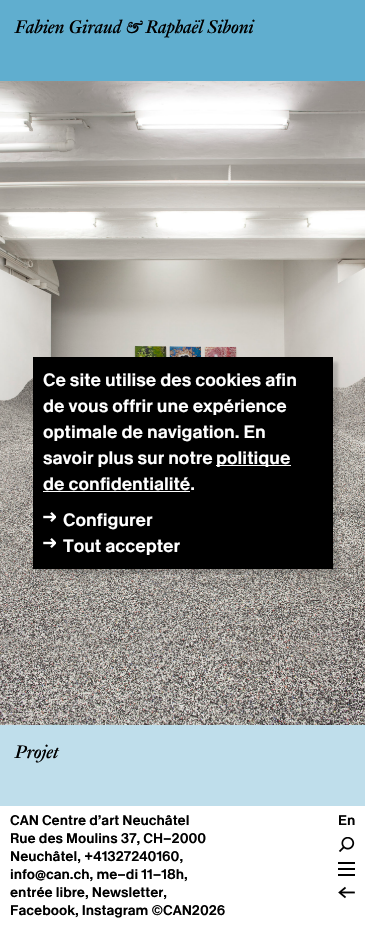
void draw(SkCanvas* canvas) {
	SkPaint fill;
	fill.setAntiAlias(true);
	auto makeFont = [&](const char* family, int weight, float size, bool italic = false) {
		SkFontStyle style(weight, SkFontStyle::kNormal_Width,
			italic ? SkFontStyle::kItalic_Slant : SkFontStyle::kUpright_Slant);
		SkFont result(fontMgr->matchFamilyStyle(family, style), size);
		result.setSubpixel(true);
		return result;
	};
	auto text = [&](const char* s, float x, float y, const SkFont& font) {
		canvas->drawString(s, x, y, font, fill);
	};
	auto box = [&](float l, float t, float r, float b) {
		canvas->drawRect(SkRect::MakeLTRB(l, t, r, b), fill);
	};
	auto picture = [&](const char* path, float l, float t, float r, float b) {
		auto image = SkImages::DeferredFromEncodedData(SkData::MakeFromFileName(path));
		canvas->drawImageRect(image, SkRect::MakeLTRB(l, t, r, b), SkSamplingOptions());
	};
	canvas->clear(0xFF60AECF);
	picture("image0.png", 0, 81, 365, 725);
	fill.setColor(0xFFBFDEEB);
	box(0, 725, 365, 806);
	fill.setColor(0x29000000);
	fill.setMaskFilter(SkMaskFilter::MakeBlur(kNormal_SkBlurStyle, 1.5f));
	canvas->drawRect(SkRect::MakeLTRB(38, 362, 338, 574), fill);
	fill.setMaskFilter(nullptr);
	fill.setColor(0xFF000000);
	box(33, 357, 333, 569);
	fill.setColor(0xFFFFFFFF);
	box(216, 465, 291, 466);
	box(43, 491, 190, 492);
	picture("image1.png", 43, 512, 56, 522);
	picture("image1.png", 43, 538, 56, 548);
	box(0, 806, 365, 926);
	picture("image2.png", 338, 837, 355, 852);
	fill.setColor(0xFF000000);
	box(338, 862, 355, 864);
	box(338, 868, 355, 870);
	box(338, 874, 355, 876);
	picture("image3.png", 338, 886, 355, 899);
	auto font1 = makeFont("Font", 700, 20, true);
	text("Fabien Giraud & Raphaël Siboni", 15, 33, font1);
	text("Projet", 15, 758, font1);
	auto font2 = makeFont("Font", 500, 18);
	fill.setColor(0xFFFFFFFF);
	text("Ce site utilise des cookies afin", 43, 386, font2);
	text("de vous offrir une expérience", 43, 412, font2);
	text("optimale de navigation. En", 43, 438, font2);
	text("savoir plus sur notre", 43, 464, font2);
	text("politique", 216, 464, font2);
	text("de confidentialité.", 43, 490, font2);
	text("Configurer", 63, 526, font2);
	text("Tout accepter", 63, 552, font2);
	auto font3 = makeFont("Font", 500, 14);
	fill.setColor(0xFF000000);
	text("CAN Centre d’art Neuchâtel", 10, 825, font3);
	text("Rue des Moulins 37, CH–2000", 10, 843, font3);
	text("Neuchâtel, +41327240160,", 10, 861, font3);
	text("info@can.ch, me–di 11–18h,", 10, 879, font3);
	text("entrée libre, Newsletter,", 10, 897, font3);
	text("Facebook, Instagram ©CAN2026", 10, 915, font3);
	text("En", 338, 825, font3);
}
